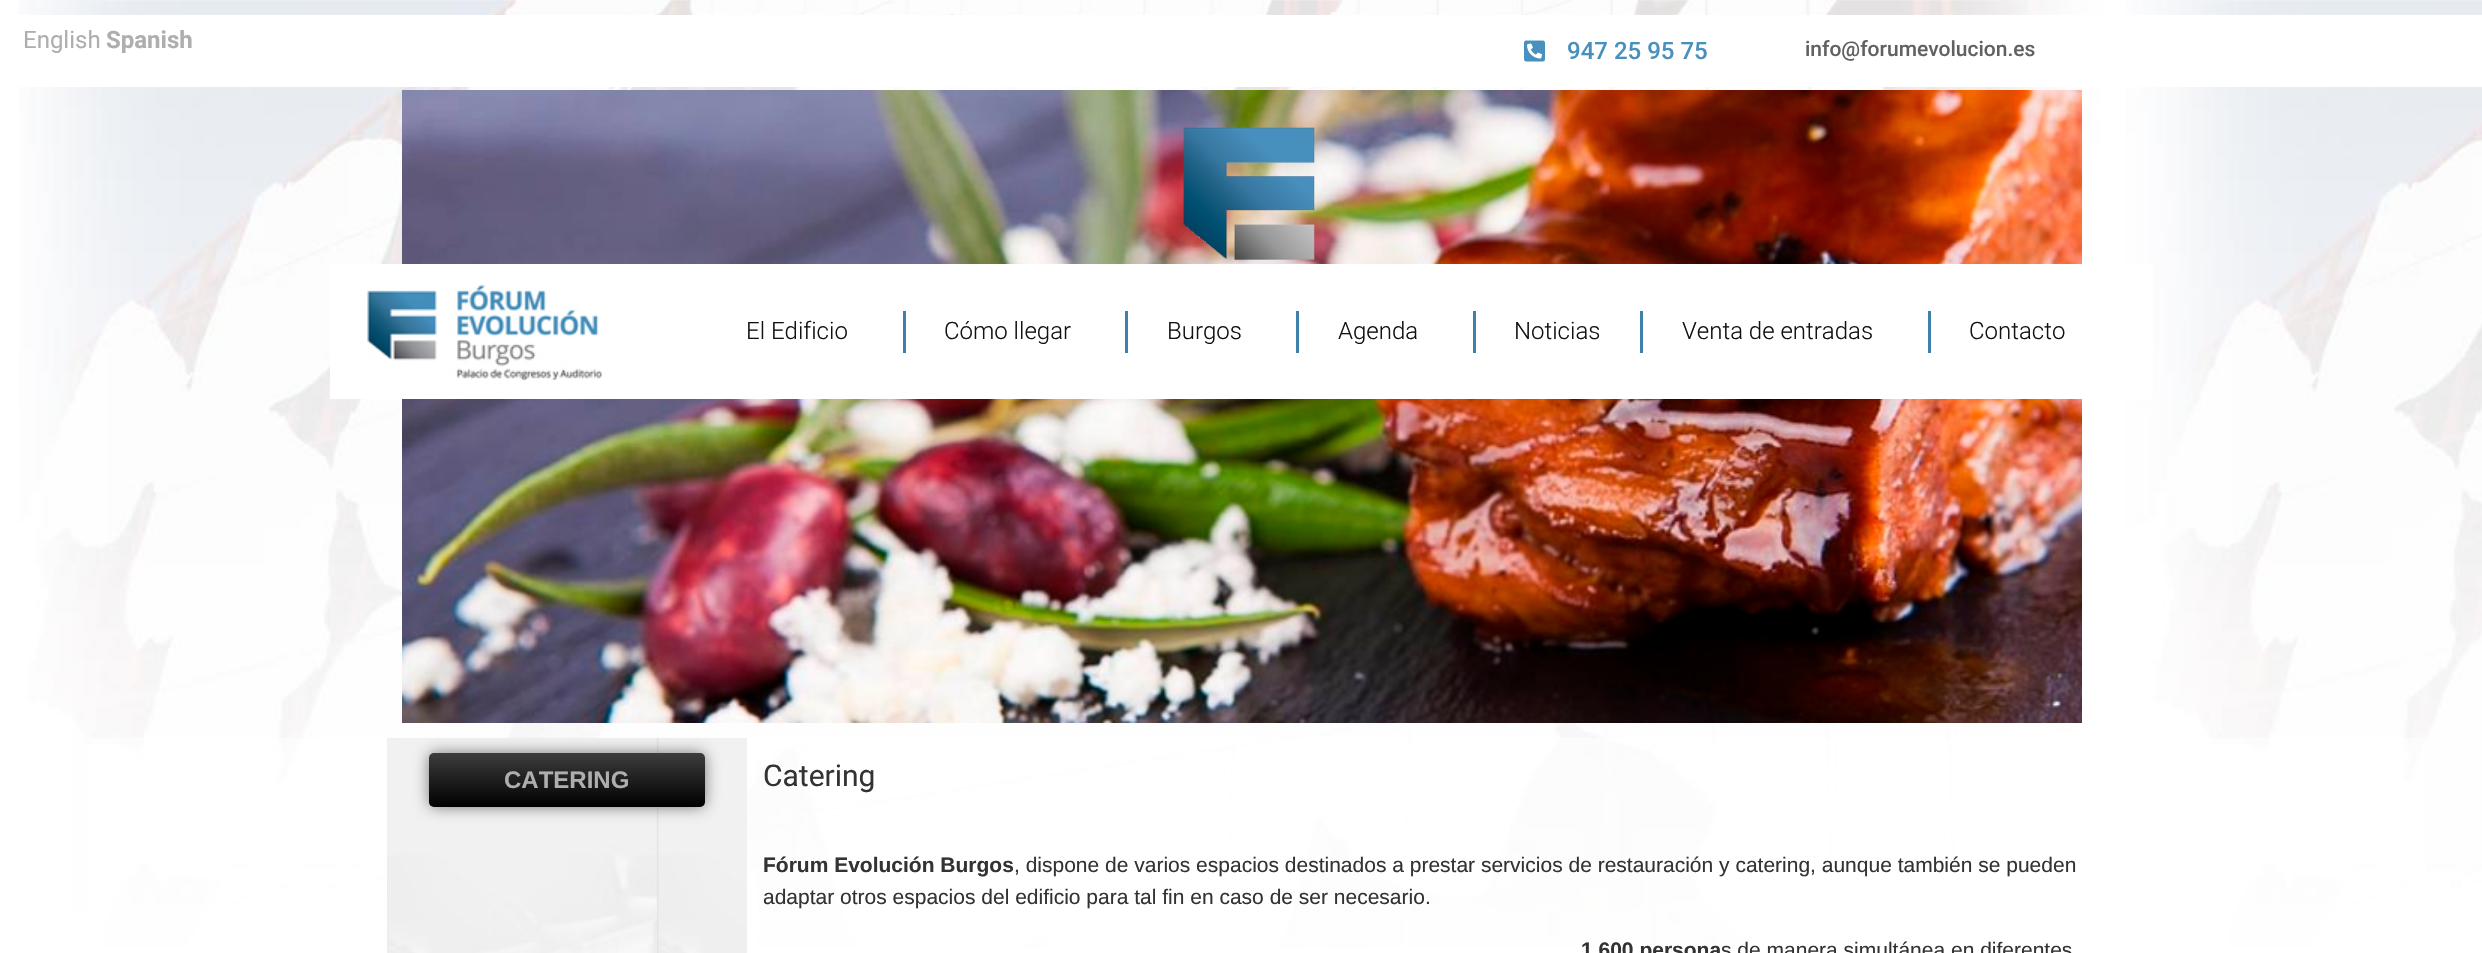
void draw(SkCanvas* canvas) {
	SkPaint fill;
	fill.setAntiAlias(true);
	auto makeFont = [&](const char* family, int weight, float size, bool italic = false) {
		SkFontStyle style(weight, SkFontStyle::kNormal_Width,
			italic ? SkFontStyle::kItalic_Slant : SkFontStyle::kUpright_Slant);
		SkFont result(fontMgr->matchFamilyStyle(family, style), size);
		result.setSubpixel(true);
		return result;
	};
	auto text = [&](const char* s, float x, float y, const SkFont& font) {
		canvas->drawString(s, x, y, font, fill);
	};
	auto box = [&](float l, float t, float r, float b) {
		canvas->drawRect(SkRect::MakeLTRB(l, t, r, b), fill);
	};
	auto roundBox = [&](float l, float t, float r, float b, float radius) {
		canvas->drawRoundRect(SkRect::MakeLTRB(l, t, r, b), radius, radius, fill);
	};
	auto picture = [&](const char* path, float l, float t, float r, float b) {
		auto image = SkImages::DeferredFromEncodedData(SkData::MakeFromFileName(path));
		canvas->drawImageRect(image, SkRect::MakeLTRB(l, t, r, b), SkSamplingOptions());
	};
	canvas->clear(0xFFFFFFFF);
	picture("image0.png", 19, 0, 2482, 948);
	fill.setColor(0xFFFFFFFF);
	box(19, 15, 2482, 87);
	picture("image1.png", 1524, 40, 1545, 62);
	picture("image4.png", 402, 90, 2082, 723);
	picture("image2.png", 1183, 127, 1315, 260);
	box(330, 264, 2153, 399);
	picture("image3.png", 367, 284, 602, 381);
	fill.setColor(0xFF3D80AB);
	box(903, 311, 906, 353);
	box(1125, 311, 1128, 353);
	box(1296, 311, 1299, 353);
	box(1473, 311, 1476, 353);
	box(1640, 311, 1643, 353);
	box(1928, 311, 1931, 353);
	fill.setColor(0x91FFFFFF);
	box(89, 738, 2426, 948);
	picture("image5.png", 387, 738, 747, 953);
	fill.setColor(0x80000000);
	fill.setMaskFilter(SkMaskFilter::MakeBlur(kNormal_SkBlurStyle, 7.5f));
	canvas->drawRoundRect(SkRect::MakeLTRB(429, 753, 705, 807), 5, 5, fill);
	fill.setMaskFilter(nullptr);
	{
		const SkColor colors[] = {0xFF3D3D3D, 0xFF000000};
		const float stops[] = {0, 1};
		const SkPoint ends[] = {{567, 753}, {567, 807}};
		fill.setShader(SkGradientShader::MakeLinear(ends, colors, stops, 2, SkTileMode::kClamp));
		fill.setAlpha(255);
	}
	roundBox(429, 753, 705, 807, 5);
	auto font1 = makeFont("Roboto", 400, 24);
	fill.setShader(nullptr);
	fill.setColor(0xFFB0ADAD);
	text("English", 23, 48, font1);
	auto font2 = makeFont("Roboto", 700, 24);
	text("Spanish", 106, 48, font2);
	auto font3 = makeFont("Roboto", 500, 24);
	fill.setColor(0xFF4890BD);
	text("947 25 95 75", 1567, 59, font3);
	auto font4 = makeFont("Roboto", 500, 21);
	fill.setColor(0xFF616161);
	text("info@forumevolucion.es", 1805, 56, font4);
	auto font5 = makeFont("Roboto", 300, 24);
	fill.setColor(0xFF121212);
	text("El Edificio", 746, 339, font5);
	text("Cómo llegar", 944, 339, font5);
	text("Burgos", 1167, 339, font5);
	text("Agenda", 1338, 339, font5);
	text("Noticias", 1514, 339, font5);
	text("Venta de entradas", 1682, 339, font5);
	text("Contacto", 1969, 339, font5);
	auto font6 = makeFont("Liberation Sans", 700, 24);
	fill.setColor(0xFFB0ADAD);
	text("CATERING", 504, 788, font6);
	auto font7 = makeFont("Roboto", 400, 30);
	fill.setColor(0xFF333333);
	text("Catering", 763, 786, font7);
	auto font8 = makeFont("Liberation Sans", 700, 21);
	text("Fórum Evolución Burgos", 763, 872, font8);
	auto font9 = makeFont("Liberation Sans", 400, 21);
	text(", dispone de varios espacios destinados a prestar servicios de restauración y catering, aunque también se pueden", 1014, 872, font9);
	text("adaptar otros espacios del edificio para tal fin en caso de ser necesario.", 763, 904, font9);
	text("1.600 persona", 1581, 957, font8);
	text("s de manera simultánea en diferentes", 1721, 957, font9);
}
